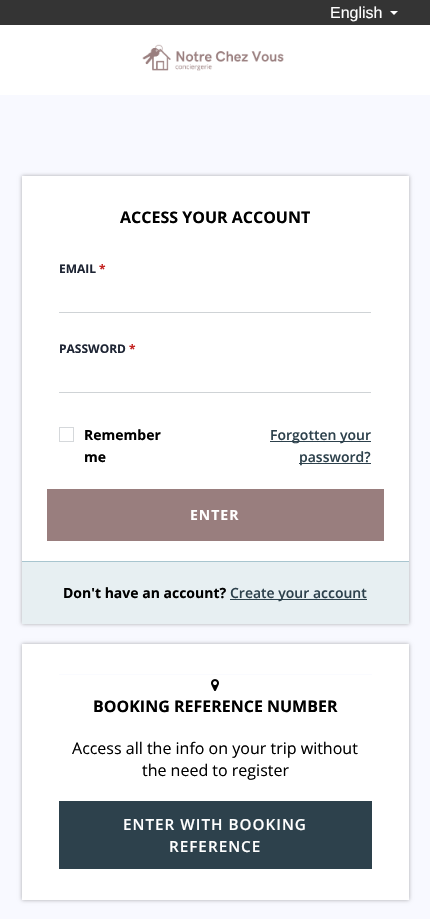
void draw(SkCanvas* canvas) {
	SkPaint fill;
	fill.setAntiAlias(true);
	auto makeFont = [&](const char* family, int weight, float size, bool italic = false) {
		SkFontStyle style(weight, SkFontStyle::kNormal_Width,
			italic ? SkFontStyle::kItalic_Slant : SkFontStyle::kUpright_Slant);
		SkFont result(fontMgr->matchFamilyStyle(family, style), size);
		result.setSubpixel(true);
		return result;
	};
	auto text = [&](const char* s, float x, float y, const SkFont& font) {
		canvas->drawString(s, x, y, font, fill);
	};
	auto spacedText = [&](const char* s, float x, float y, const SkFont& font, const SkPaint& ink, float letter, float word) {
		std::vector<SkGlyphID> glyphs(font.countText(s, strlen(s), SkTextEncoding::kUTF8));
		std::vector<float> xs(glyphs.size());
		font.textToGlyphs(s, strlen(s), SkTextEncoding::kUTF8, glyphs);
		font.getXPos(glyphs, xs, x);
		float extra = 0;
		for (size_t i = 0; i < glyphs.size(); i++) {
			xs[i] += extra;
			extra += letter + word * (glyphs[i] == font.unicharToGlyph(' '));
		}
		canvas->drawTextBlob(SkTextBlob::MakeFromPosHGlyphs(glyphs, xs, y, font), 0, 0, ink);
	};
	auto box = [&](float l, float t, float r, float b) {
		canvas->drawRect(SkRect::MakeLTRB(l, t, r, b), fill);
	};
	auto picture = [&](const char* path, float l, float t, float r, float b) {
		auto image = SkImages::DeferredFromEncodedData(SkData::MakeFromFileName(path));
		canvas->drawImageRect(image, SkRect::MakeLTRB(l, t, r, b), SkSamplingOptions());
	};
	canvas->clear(0xFFF8F9FF);
	fill.setColor(0xFF343434);
	box(0, 0, 430, 25);
	fill.setColor(0xFFFFFFFF);
	canvas->drawPath(SkPathBuilder().moveTo(390, 11).lineTo(398, 11).lineTo(394, 15).close().detach(), fill);
	box(0, 25, 430, 95);
	picture("image0.png", 142, 44, 284, 71);
	fill.setColor(0x52000000);
	fill.setMaskFilter(SkMaskFilter::MakeBlur(kNormal_SkBlurStyle, 2));
	canvas->drawRect(SkRect::MakeLTRB(22, 176, 409, 624), fill);
	fill.setMaskFilter(nullptr);
	fill.setColor(0xFFFFFFFF);
	box(22, 176, 409, 561);
	fill.setColor(0xFFCFD3D6);
	box(59, 312, 371, 313);
	box(59, 392, 371, 393);
	fill.setStyle(SkPaint::kStroke_Style);
	fill.setStrokeWidth(1);
	fill.setColor(0xFFD5D8DB);
	canvas->drawRect(SkRect::MakeLTRB(59.5f, 427.5f, 73.5f, 441.5f), fill);
	fill.setStyle(SkPaint::kFill_Style);
	fill.setColor(0xFF2D414C);
	box(270, 441, 371, 442);
	box(299, 463, 371, 464);
	fill.setColor(0xFF997E7E);
	box(47, 489, 384, 541);
	fill.setColor(0xFFE7EFF2);
	box(22, 562, 409, 624);
	fill.setColor(0xFFA8C5CF);
	box(22, 561, 409, 562);
	fill.setColor(0xFF2D414C);
	box(230, 599, 367, 600);
	fill.setColor(0x52000000);
	fill.setMaskFilter(SkMaskFilter::MakeBlur(kNormal_SkBlurStyle, 2));
	canvas->drawRect(SkRect::MakeLTRB(22, 644, 409, 900), fill);
	fill.setMaskFilter(nullptr);
	fill.setColor(0xFFFFFFFF);
	box(22, 644, 409, 900);
	fill.setColor(0xFFFAFBFF);
	box(59, 674, 372, 675);
	picture("image1.png", 211, 679, 219, 691);
	fill.setColor(0xFF2D414C);
	box(59, 801, 372, 869);
	auto font1 = makeFont("Liberation Sans", 400, 16);
	fill.setColor(0xFFFFFFFF);
	text("English", 330, 18, font1);
	auto font2 = makeFont("Open Sans", 700, 16);
	fill.setColor(0xFF000000);
	text("ACCESS YOUR ACCOUNT", 120, 223, font2);
	auto font3 = makeFont("Open Sans", 700, 12);
	fill.setColor(0xFF1E2534);
	text("EMAIL", 59, 273, font3);
	fill.setColor(0xFFC42422);
	text("*", 99, 273, font3);
	fill.setColor(0xFF1E2534);
	text("PASSWORD", 59, 353, font3);
	fill.setColor(0xFFC42422);
	text("*", 129, 353, font3);
	auto font4 = makeFont("Open Sans", 700, 14);
	fill.setColor(0xFF000000);
	text("Remember", 84, 440, font4);
	text("me", 84, 462, font4);
	auto font5 = makeFont("Open Sans", 600, 14);
	fill.setColor(0xFF2D414C);
	text("Forgotten your", 270, 440, font5);
	text("password?", 299, 462, font5);
	fill.setColor(0xFFFFFFFF);
	spacedText("ENTER", 190, 520, font4, fill, 1, 0);
	fill.setColor(0xFF000000);
	text("Don't have an account?", 63, 598, font4);
	fill.setColor(0xFF2D414C);
	text("Create your account", 230, 598, font5);
	fill.setColor(0xFF000000);
	text("BOOKING REFERENCE NUMBER", 93, 712, font2);
	auto font6 = makeFont("Open Sans", 400, 16);
	text("Access all the info on your trip without", 72, 754, font6);
	text("the need to register", 142, 776, font6);
	auto font7 = makeFont("Open Sans", 600, 15.25f);
	fill.setColor(0xFFFFFFFF);
	spacedText("ENTER WITH BOOKING", 123, 830, font7, fill, 1, 0);
	spacedText("REFERENCE", 169, 852, font7, fill, 1, 0);
}
